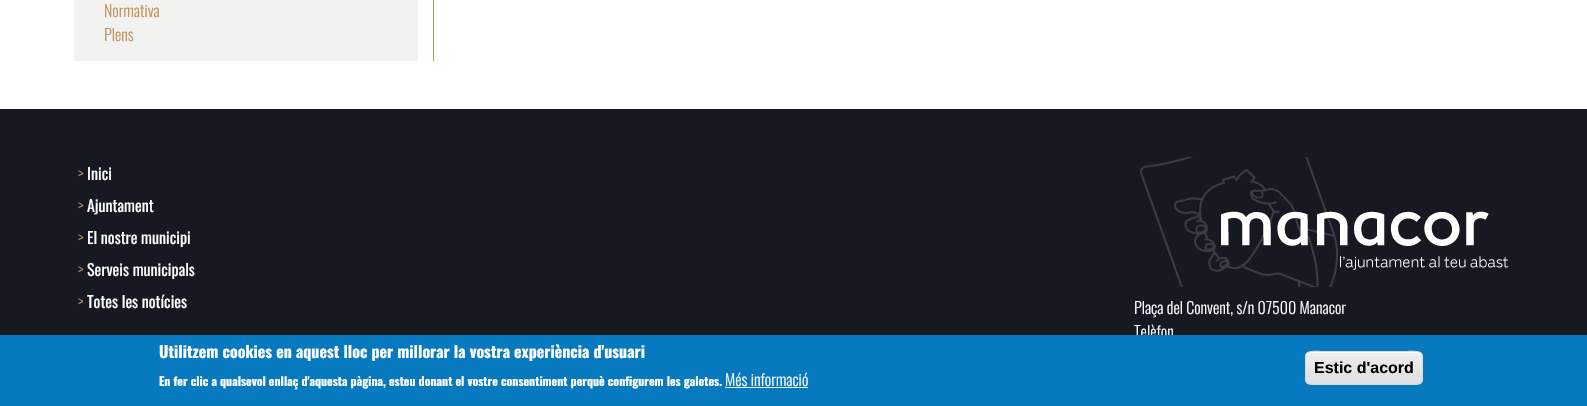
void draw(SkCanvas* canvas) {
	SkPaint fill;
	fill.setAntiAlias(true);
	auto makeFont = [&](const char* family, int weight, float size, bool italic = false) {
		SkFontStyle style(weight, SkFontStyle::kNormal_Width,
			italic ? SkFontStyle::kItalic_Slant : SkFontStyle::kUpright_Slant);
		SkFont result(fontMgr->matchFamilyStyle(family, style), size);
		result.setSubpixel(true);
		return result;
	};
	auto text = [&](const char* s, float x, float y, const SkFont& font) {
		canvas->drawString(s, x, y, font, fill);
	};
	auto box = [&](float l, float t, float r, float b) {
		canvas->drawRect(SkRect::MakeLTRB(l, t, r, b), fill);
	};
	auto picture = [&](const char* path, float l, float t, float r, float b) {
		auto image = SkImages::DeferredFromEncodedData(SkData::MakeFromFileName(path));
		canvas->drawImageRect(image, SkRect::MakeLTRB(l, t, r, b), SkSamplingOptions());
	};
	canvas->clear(0xFF161921);
	fill.setColor(0xFFFFFFFF);
	box(0, 0, 1587, 109);
	fill.setColor(0xFFBE8E56);
	box(433, 0, 434, 61);
	fill.setColor(0xFFF2F2F1);
	box(74, 0, 418, 61);
	picture("image0.png", 1140, 157, 1509, 287);
	auto font1 = makeFont("Oswald", 300, 16);
	fill.setColor(0xFFBE8E56);
	text("Normativa", 104, 17, font1);
	text("Plens", 104, 41, font1);
	text(">", 78, 180, font1);
	auto font2 = makeFont("Oswald", 400, 16);
	fill.setColor(0xFFFFFFFF);
	text("Inici", 87, 180, font2);
	fill.setColor(0xFFBE8E56);
	text(">", 78, 212, font1);
	fill.setColor(0xFFFFFFFF);
	text("Ajuntament", 87, 212, font2);
	fill.setColor(0xFFBE8E56);
	text(">", 78, 244, font1);
	fill.setColor(0xFFFFFFFF);
	text("El nostre municipi", 87, 244, font2);
	fill.setColor(0xFFBE8E56);
	text(">", 78, 276, font1);
	fill.setColor(0xFFFFFFFF);
	text("Serveis municipals", 87, 276, font2);
	fill.setColor(0xFFBE8E56);
	text(">", 78, 308, font1);
	fill.setColor(0xFFFFFFFF);
	text("Totes les notícies", 87, 308, font2);
	text("Plaça del Convent, s/n 07500 Manacor", 1134, 314, font1);
	text("Telèfon", 1134, 338, font1);
	fill.setColor(0xFF0779BF);
	box(0, 335, 1587, 406);
	auto font3 = makeFont("Oswald", 700, 16);
	fill.setColor(0xFFFFFFFF);
	text("Utilitzem cookies en aquest lloc per millorar la vostra experiència d'usuari", 159, 358, font3);
	auto font4 = makeFont("Oswald", 700, 12);
	text("En fer clic a qualsevol enllaç d'aquesta pàgina, esteu donant el vostre consentiment perquè configurem les galetes.", 159, 386, font4);
	text("Més informació", 725, 386, font1);
	box(725, 387, 808, 388);
	canvas->save();
	canvas->clipPath(SkPathBuilder().moveTo(1311, 351).lineTo(1417, 351).cubicTo(1420.5f, 351, 1423, 353.5f, 1423, 357).lineTo(1423, 379).cubicTo(1423, 382.5f, 1420.5f, 385, 1417, 385).lineTo(1311, 385).cubicTo(1307.5f, 385, 1305, 382.5f, 1305, 379).lineTo(1305, 357).cubicTo(1305, 353.5f, 1307.5f, 351, 1311, 351).close().detach(), true);
	{
		const SkColor colors[] = {0xFFEDEDED, 0xFFDFDFDF};
		const float stops[] = {0.05f, 1};
		const SkPoint ends[] = {{1364, 352}, {1364, 384}};
		fill.setShader(SkGradientShader::MakeLinear(ends, colors, stops, 2, SkTileMode::kClamp));
		fill.setAlpha(255);
	}
	box(1305, 352, 1423, 384);
	canvas->restore();
	fill.setShader(nullptr);
	fill.setColor(0xFFFFFFFF);
	canvas->drawPath(SkPathBuilder().moveTo(1311, 353).lineTo(1417, 353).cubicTo(1420, 353, 1422, 355, 1422, 358).cubicTo(1422, 347, 1404, 352, 1399, 352).lineTo(1329, 352).cubicTo(1324, 352, 1306, 347, 1306, 358).cubicTo(1306, 355, 1308, 353, 1311, 353).close().detach(), fill);
	fill.setStyle(SkPaint::kStroke_Style);
	fill.setStrokeWidth(1);
	fill.setColor(0xFFDCDCDC);
	canvas->drawRoundRect(SkRect::MakeLTRB(1305.5f, 351.5f, 1422.5f, 384.5f), 5.5f, 5.5f, fill);
	auto font5 = makeFont("Liberation Sans", 700, 16);
	fill.setStyle(SkPaint::kFill_Style);
	fill.setColor(0xFF000000);
	text("Estic d'acord", 1314, 373, font5);
}
